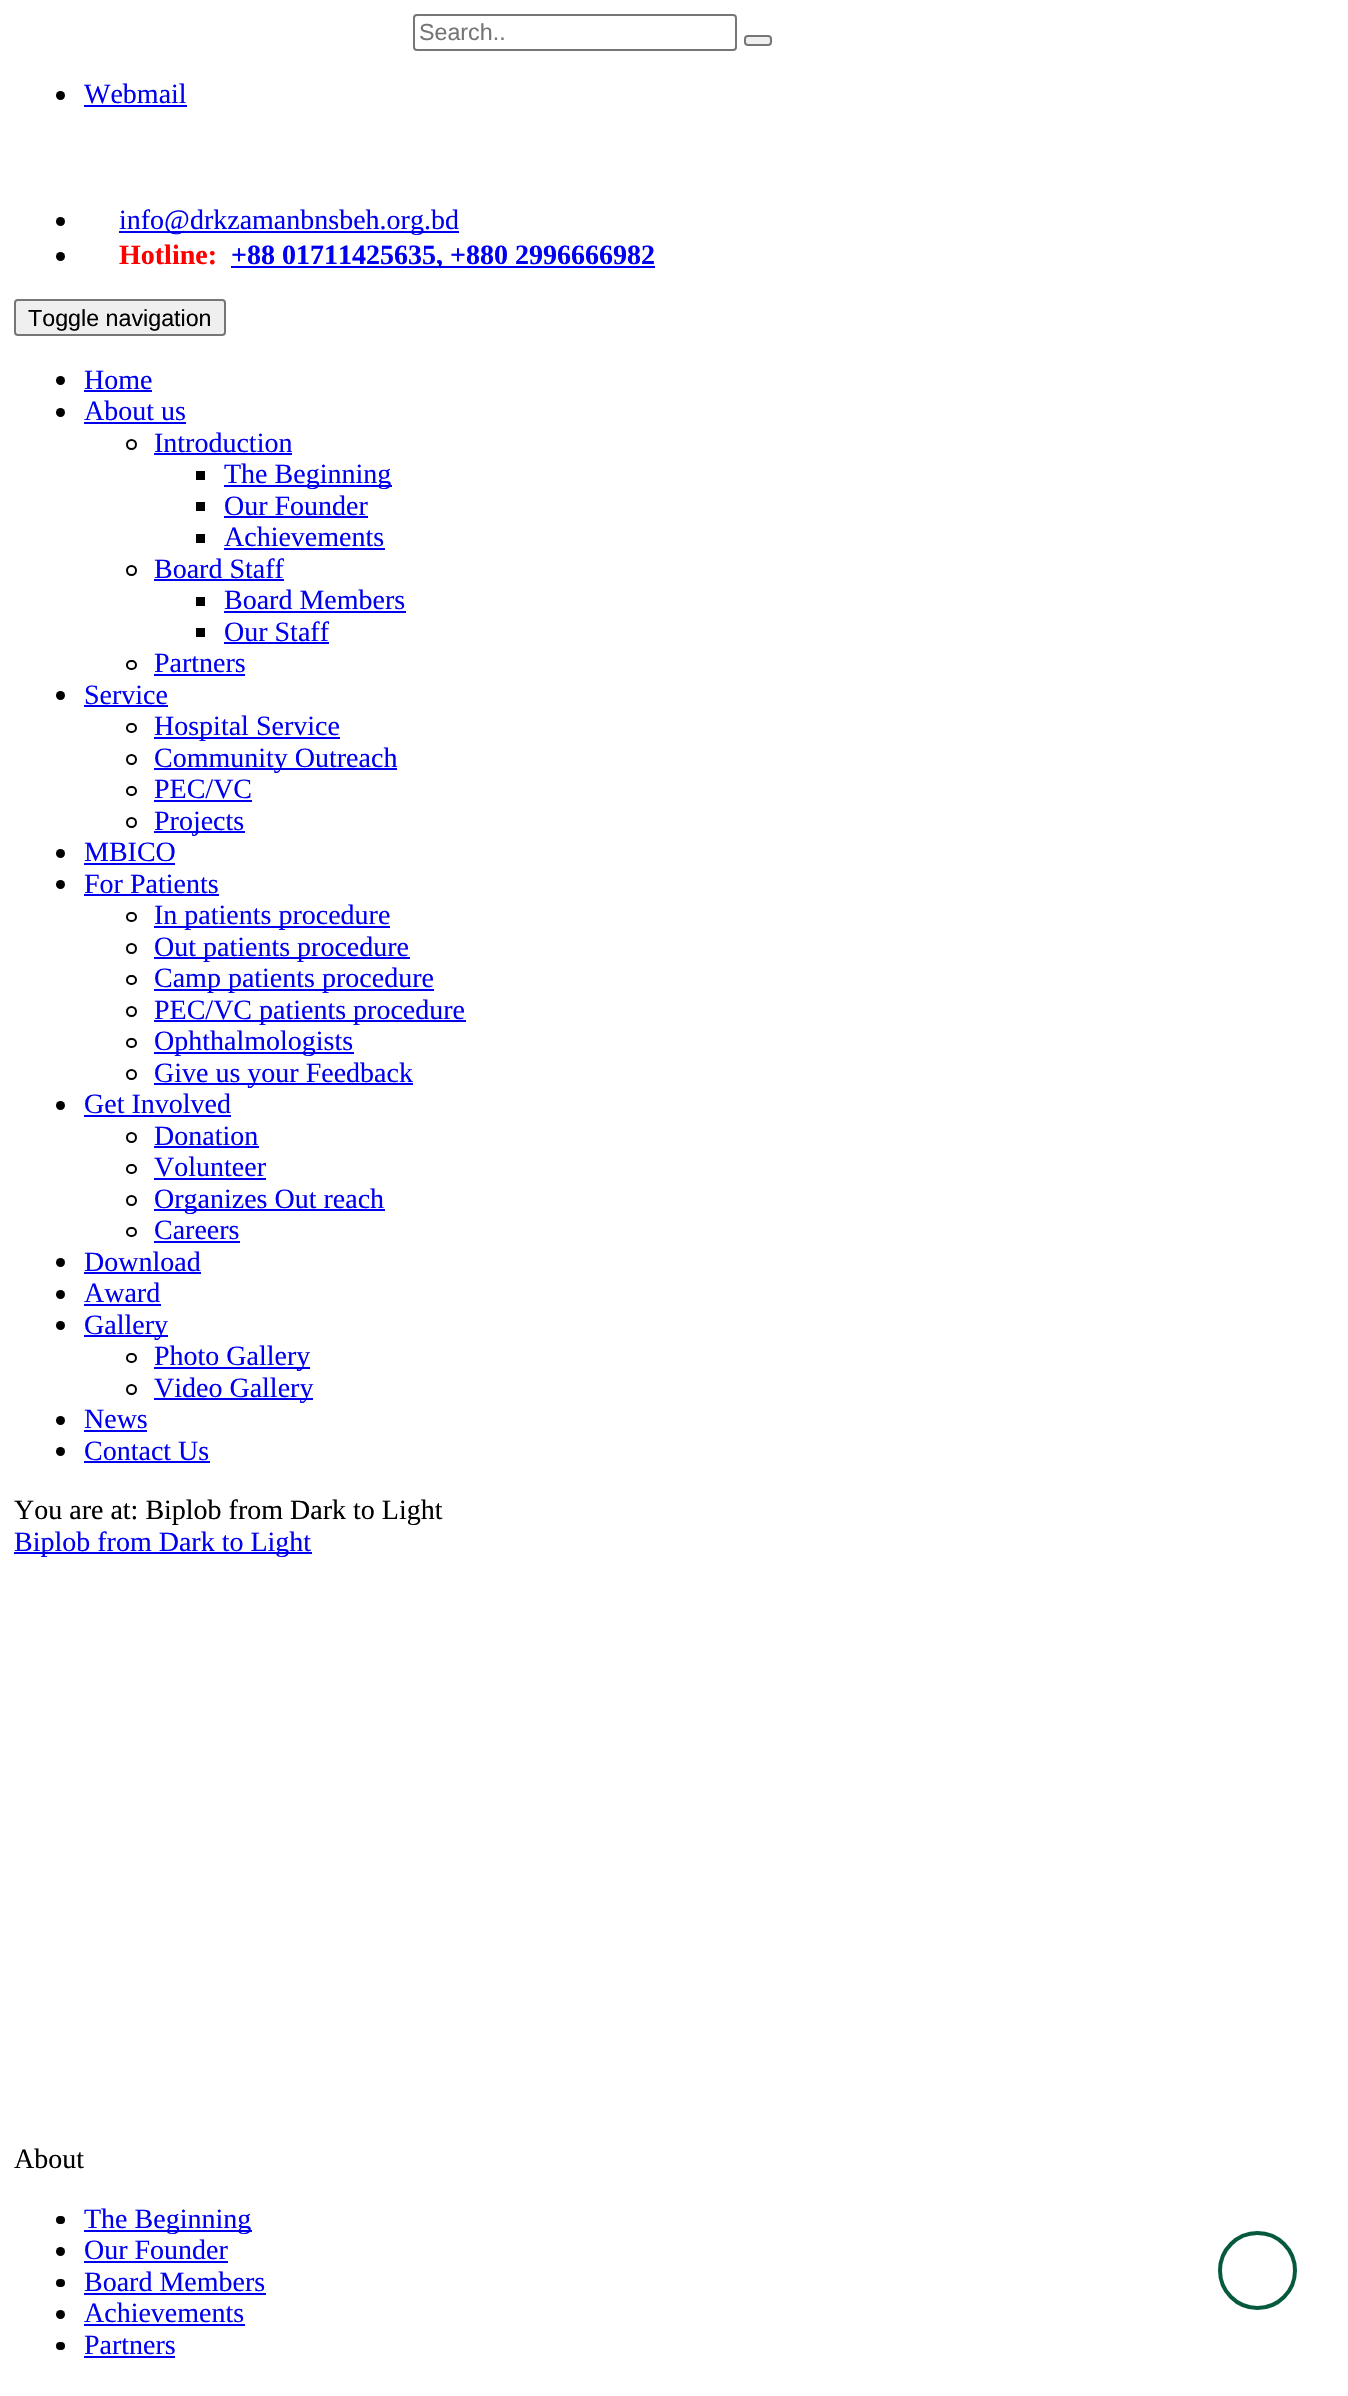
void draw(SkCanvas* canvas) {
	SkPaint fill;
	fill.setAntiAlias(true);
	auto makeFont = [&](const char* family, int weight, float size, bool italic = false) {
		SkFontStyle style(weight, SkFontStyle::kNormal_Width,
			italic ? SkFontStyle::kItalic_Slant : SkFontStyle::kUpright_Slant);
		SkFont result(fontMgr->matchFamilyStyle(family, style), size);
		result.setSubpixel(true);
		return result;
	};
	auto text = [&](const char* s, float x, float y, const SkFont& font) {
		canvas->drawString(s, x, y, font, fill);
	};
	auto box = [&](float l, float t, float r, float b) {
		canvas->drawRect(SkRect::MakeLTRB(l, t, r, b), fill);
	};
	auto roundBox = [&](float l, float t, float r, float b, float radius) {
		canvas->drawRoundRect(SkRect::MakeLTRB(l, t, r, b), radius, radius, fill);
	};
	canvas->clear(0xFFFFFFFF);
	fill.setStyle(SkPaint::kStroke_Style);
	fill.setStrokeWidth(2);
	fill.setColor(0xFF767676);
	canvas->drawRoundRect(SkRect::MakeLTRB(414, 15, 736, 50), 3, 3, fill);
	fill.setStyle(SkPaint::kFill_Style);
	fill.setColor(0xFFEFEFEF);
	canvas->drawRoundRect(SkRect::MakeLTRB(745, 36, 771, 45), 3, 3, fill);
	fill.setStyle(SkPaint::kStroke_Style);
	fill.setColor(0xFF767676);
	canvas->drawRoundRect(SkRect::MakeLTRB(745, 36, 771, 45), 3, 3, fill);
	fill.setStyle(SkPaint::kFill_Style);
	fill.setColor(0xFF000000);
	canvas->drawCircle(60.5f, 95.5f, 4.5f, fill);
	fill.setColor(0xFF0000EE);
	box(84, 105, 187, 107);
	fill.setColor(0xFF000000);
	canvas->drawCircle(60.5f, 221.5f, 4.5f, fill);
	fill.setColor(0xFF0000EE);
	box(119, 231, 459, 233);
	fill.setColor(0xFF000000);
	canvas->drawCircle(60.5f, 256.5f, 4.5f, fill);
	fill.setColor(0xFF0000EE);
	box(231, 266, 655, 268);
	fill.setColor(0xFFEFEFEF);
	canvas->drawRoundRect(SkRect::MakeLTRB(15, 300, 225, 335), 3, 3, fill);
	fill.setStyle(SkPaint::kStroke_Style);
	fill.setColor(0xFF767676);
	canvas->drawRoundRect(SkRect::MakeLTRB(15, 300, 225, 335), 3, 3, fill);
	fill.setStyle(SkPaint::kFill_Style);
	fill.setColor(0xFF000000);
	canvas->drawCircle(60.5f, 380.5f, 4.5f, fill);
	fill.setColor(0xFF0000EE);
	box(84, 390, 152, 392);
	fill.setColor(0xFF000000);
	canvas->drawCircle(60.5f, 412.5f, 4.5f, fill);
	fill.setColor(0xFF0000EE);
	box(84, 422, 186, 424);
	fill.setStyle(SkPaint::kStroke_Style);
	fill.setColor(0xFF000000);
	canvas->drawCircle(131.5f, 444.5f, 4.5f, fill);
	fill.setStyle(SkPaint::kFill_Style);
	fill.setColor(0xFF0000EE);
	box(154, 453, 292, 455);
	fill.setColor(0xFF000000);
	box(196, 471, 205, 480);
	fill.setColor(0xFF0000EE);
	box(224, 485, 392, 487);
	fill.setColor(0xFF000000);
	box(196, 502, 205, 511);
	fill.setColor(0xFF0000EE);
	box(224, 516, 368, 518);
	fill.setColor(0xFF000000);
	box(196, 534, 205, 543);
	fill.setColor(0xFF0000EE);
	box(224, 548, 385, 550);
	fill.setStyle(SkPaint::kStroke_Style);
	fill.setColor(0xFF000000);
	canvas->drawCircle(131.5f, 570.5f, 4.5f, fill);
	fill.setStyle(SkPaint::kFill_Style);
	fill.setColor(0xFF0000EE);
	box(154, 579, 284, 581);
	fill.setColor(0xFF000000);
	box(196, 597, 205, 606);
	fill.setColor(0xFF0000EE);
	box(224, 611, 406, 613);
	fill.setColor(0xFF000000);
	box(196, 628, 205, 637);
	fill.setColor(0xFF0000EE);
	box(224, 642, 329, 644);
	fill.setStyle(SkPaint::kStroke_Style);
	fill.setColor(0xFF000000);
	canvas->drawRoundRect(SkRect::MakeLTRB(127, 661, 136, 669), 4, 4, fill);
	fill.setStyle(SkPaint::kFill_Style);
	fill.setColor(0xFF0000EE);
	box(154, 674, 245, 676);
	fill.setColor(0xFF000000);
	canvas->drawCircle(60.5f, 695.5f, 4.5f, fill);
	fill.setColor(0xFF0000EE);
	box(84, 705, 168, 707);
	fill.setStyle(SkPaint::kStroke_Style);
	fill.setColor(0xFF000000);
	canvas->drawRoundRect(SkRect::MakeLTRB(127, 724, 136, 732), 4, 4, fill);
	fill.setStyle(SkPaint::kFill_Style);
	fill.setColor(0xFF0000EE);
	box(154, 737, 340, 739);
	fill.setStyle(SkPaint::kStroke_Style);
	fill.setColor(0xFF000000);
	canvas->drawCircle(131.5f, 759.5f, 4.5f, fill);
	fill.setStyle(SkPaint::kFill_Style);
	fill.setColor(0xFF0000EE);
	box(154, 768, 397, 770);
	fill.setStyle(SkPaint::kStroke_Style);
	fill.setColor(0xFF000000);
	canvas->drawRoundRect(SkRect::MakeLTRB(127, 787, 136, 795), 4, 4, fill);
	fill.setStyle(SkPaint::kFill_Style);
	fill.setColor(0xFF0000EE);
	box(154, 800, 252, 802);
	fill.setStyle(SkPaint::kStroke_Style);
	fill.setColor(0xFF000000);
	canvas->drawCircle(131.5f, 822.5f, 4.5f, fill);
	fill.setStyle(SkPaint::kFill_Style);
	fill.setColor(0xFF0000EE);
	box(154, 831, 245, 833);
	fill.setColor(0xFF000000);
	canvas->drawCircle(60.5f, 853.5f, 4.5f, fill);
	fill.setColor(0xFF0000EE);
	box(84, 863, 175, 865);
	fill.setColor(0xFF000000);
	canvas->drawCircle(60.5f, 884.5f, 4.5f, fill);
	fill.setColor(0xFF0000EE);
	box(84, 894, 219, 896);
	fill.setStyle(SkPaint::kStroke_Style);
	fill.setColor(0xFF000000);
	canvas->drawRoundRect(SkRect::MakeLTRB(127, 913, 136, 921), 4, 4, fill);
	fill.setStyle(SkPaint::kFill_Style);
	fill.setColor(0xFF0000EE);
	box(154, 926, 390, 928);
	fill.setStyle(SkPaint::kStroke_Style);
	fill.setColor(0xFF000000);
	canvas->drawCircle(131.5f, 948.5f, 4.5f, fill);
	fill.setStyle(SkPaint::kFill_Style);
	fill.setColor(0xFF0000EE);
	box(154, 957, 410, 959);
	fill.setStyle(SkPaint::kStroke_Style);
	fill.setColor(0xFF000000);
	canvas->drawRoundRect(SkRect::MakeLTRB(127, 976, 136, 984), 4, 4, fill);
	fill.setStyle(SkPaint::kFill_Style);
	fill.setColor(0xFF0000EE);
	box(154, 989, 434, 991);
	fill.setStyle(SkPaint::kStroke_Style);
	fill.setColor(0xFF000000);
	canvas->drawCircle(131.5f, 1011.5f, 4.5f, fill);
	fill.setStyle(SkPaint::kFill_Style);
	fill.setColor(0xFF0000EE);
	box(154, 1020, 466, 1022);
	fill.setStyle(SkPaint::kStroke_Style);
	fill.setColor(0xFF000000);
	canvas->drawRoundRect(SkRect::MakeLTRB(127, 1039, 136, 1047), 4, 4, fill);
	fill.setStyle(SkPaint::kFill_Style);
	fill.setColor(0xFF0000EE);
	box(154, 1052, 354, 1054);
	fill.setStyle(SkPaint::kStroke_Style);
	fill.setColor(0xFF000000);
	canvas->drawCircle(131.5f, 1074.5f, 4.5f, fill);
	fill.setStyle(SkPaint::kFill_Style);
	fill.setColor(0xFF0000EE);
	box(154, 1083, 413, 1085);
	fill.setColor(0xFF000000);
	canvas->drawCircle(60.5f, 1105.5f, 4.5f, fill);
	fill.setColor(0xFF0000EE);
	box(84, 1115, 231, 1117);
	fill.setStyle(SkPaint::kStroke_Style);
	fill.setColor(0xFF000000);
	canvas->drawCircle(131.5f, 1137.5f, 4.5f, fill);
	fill.setStyle(SkPaint::kFill_Style);
	fill.setColor(0xFF0000EE);
	box(154, 1146, 259, 1148);
	fill.setStyle(SkPaint::kStroke_Style);
	fill.setColor(0xFF000000);
	canvas->drawRoundRect(SkRect::MakeLTRB(127, 1165, 136, 1173), 4, 4, fill);
	fill.setStyle(SkPaint::kFill_Style);
	fill.setColor(0xFF0000EE);
	box(154, 1178, 266, 1180);
	fill.setStyle(SkPaint::kStroke_Style);
	fill.setColor(0xFF000000);
	canvas->drawCircle(131.5f, 1200.5f, 4.5f, fill);
	fill.setStyle(SkPaint::kFill_Style);
	fill.setColor(0xFF0000EE);
	box(154, 1209, 385, 1211);
	fill.setStyle(SkPaint::kStroke_Style);
	fill.setColor(0xFF000000);
	canvas->drawRoundRect(SkRect::MakeLTRB(127, 1228, 136, 1236), 4, 4, fill);
	fill.setStyle(SkPaint::kFill_Style);
	fill.setColor(0xFF0000EE);
	box(154, 1241, 240, 1243);
	fill.setColor(0xFF000000);
	canvas->drawCircle(60.5f, 1262.5f, 4.5f, fill);
	fill.setColor(0xFF0000EE);
	box(84, 1272, 201, 1274);
	fill.setColor(0xFF000000);
	canvas->drawCircle(60.5f, 1294.5f, 4.5f, fill);
	fill.setColor(0xFF0000EE);
	box(84, 1304, 161, 1306);
	fill.setColor(0xFF000000);
	canvas->drawCircle(60.5f, 1325.5f, 4.5f, fill);
	fill.setColor(0xFF0000EE);
	box(84, 1335, 168, 1337);
	fill.setStyle(SkPaint::kStroke_Style);
	fill.setColor(0xFF000000);
	canvas->drawRoundRect(SkRect::MakeLTRB(127, 1354, 136, 1362), 4, 4, fill);
	fill.setStyle(SkPaint::kFill_Style);
	fill.setColor(0xFF0000EE);
	box(154, 1367, 310, 1369);
	fill.setStyle(SkPaint::kStroke_Style);
	fill.setColor(0xFF000000);
	canvas->drawCircle(131.5f, 1389.5f, 4.5f, fill);
	fill.setStyle(SkPaint::kFill_Style);
	fill.setColor(0xFF0000EE);
	box(154, 1398, 313, 1400);
	fill.setColor(0xFF000000);
	canvas->drawCircle(60.5f, 1420.5f, 4.5f, fill);
	fill.setColor(0xFF0000EE);
	box(84, 1430, 147, 1432);
	fill.setColor(0xFF000000);
	canvas->drawCircle(60.5f, 1451.5f, 4.5f, fill);
	fill.setColor(0xFF0000EE);
	box(84, 1461, 210, 1463);
	box(14, 1552, 312, 1554);
	fill.setColor(0xFF000000);
	roundBox(56, 2216, 65, 2224, 4);
	fill.setColor(0xFF0000EE);
	box(84, 2230, 252, 2232);
	fill.setColor(0xFF000000);
	canvas->drawCircle(60.5f, 2251.5f, 4.5f, fill);
	fill.setColor(0xFF0000EE);
	box(84, 2261, 228, 2263);
	fill.setColor(0xFF000000);
	roundBox(56, 2279, 65, 2287, 4);
	fill.setColor(0xFF0000EE);
	box(84, 2293, 266, 2295);
	fill.setColor(0xFF000000);
	canvas->drawCircle(60.5f, 2314.5f, 4.5f, fill);
	fill.setColor(0xFF0000EE);
	box(84, 2324, 245, 2326);
	fill.setColor(0xFF000000);
	roundBox(56, 2342, 65, 2350, 4);
	fill.setColor(0xFF0000EE);
	box(84, 2356, 175, 2358);
	fill.setStyle(SkPaint::kStroke_Style);
	fill.setStrokeWidth(4);
	fill.setColor(0xFF04593E);
	canvas->drawCircle(1257.5f, 2270.5f, 37.5f, fill);
	auto font1 = makeFont("Liberation Sans", 400, 23.25f);
	fill.setStyle(SkPaint::kFill_Style);
	fill.setColor(0xFF757575);
	text("Search..", 419, 40, font1);
	auto font2 = makeFont("Liberation Serif", 400, 28);
	fill.setColor(0xFF0000EE);
	text("Webmail", 84, 103, font2);
	text("info@drkzamanbnsbeh.org.bd", 119, 229, font2);
	auto font3 = makeFont("Liberation Serif", 700, 28);
	fill.setColor(0xFFFF0000);
	text("Hotline:", 119, 264, font3);
	fill.setColor(0xFF0000EE);
	text("+88 01711425635, +880 2996666982", 231, 264, font3);
	fill.setColor(0xFF000000);
	text("Toggle navigation", 28, 326, font1);
	fill.setColor(0xFF0000EE);
	text("Home", 84, 389, font2);
	text("About us", 84, 420, font2);
	text("Introduction", 154, 452, font2);
	text("The Beginning", 224, 483, font2);
	text("Our Founder", 224, 515, font2);
	text("Achievements", 224, 546, font2);
	text("Board Staff", 154, 578, font2);
	text("Board Members", 224, 609, font2);
	text("Our Staff", 224, 641, font2);
	text("Partners", 154, 672, font2);
	text("Service", 84, 704, font2);
	text("Hospital Service", 154, 735, font2);
	text("Community Outreach", 154, 767, font2);
	text("PEC/VC", 154, 798, font2);
	text("Projects", 154, 830, font2);
	text("MBICO", 84, 861, font2);
	text("For Patients", 84, 893, font2);
	text("In patients procedure", 154, 924, font2);
	text("Out patients procedure", 154, 956, font2);
	text("Camp patients procedure", 154, 987, font2);
	text("PEC/VC patients procedure", 154, 1019, font2);
	text("Ophthalmologists", 154, 1050, font2);
	text("Give us your Feedback", 154, 1082, font2);
	text("Get Involved", 84, 1113, font2);
	text("Donation", 154, 1145, font2);
	text("Volunteer", 154, 1176, font2);
	text("Organizes Out reach", 154, 1208, font2);
	text("Careers", 154, 1239, font2);
	text("Download", 84, 1271, font2);
	text("Award", 84, 1302, font2);
	text("Gallery", 84, 1334, font2);
	text("Photo Gallery", 154, 1365, font2);
	text("Video Gallery", 154, 1397, font2);
	text("News", 84, 1428, font2);
	text("Contact Us", 84, 1460, font2);
	fill.setColor(0xFF000000);
	text("You are at: Biplob from Dark to Light", 14, 1519, font2);
	fill.setColor(0xFF0000EE);
	text("Biplob from Dark to Light", 14, 1551, font2);
	fill.setColor(0xFF000000);
	text("About", 14, 2168, font2);
	fill.setColor(0xFF0000EE);
	text("The Beginning", 84, 2228, font2);
	text("Our Founder", 84, 2259, font2);
	text("Board Members", 84, 2291, font2);
	text("Achievements", 84, 2322, font2);
	text("Partners", 84, 2354, font2);
}
